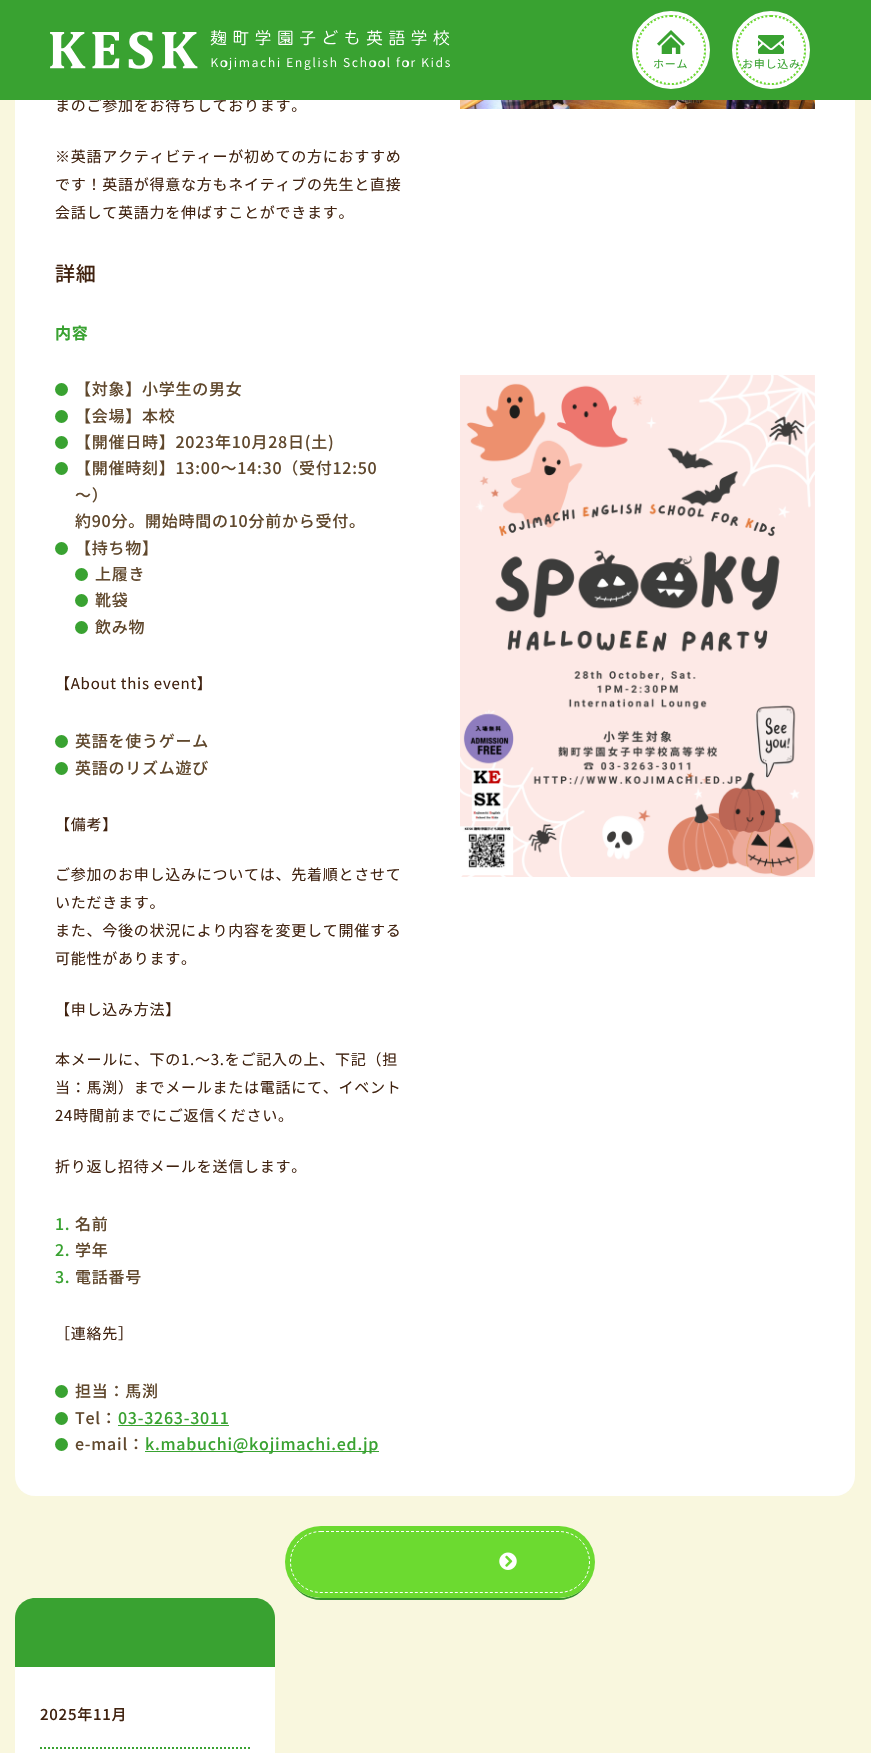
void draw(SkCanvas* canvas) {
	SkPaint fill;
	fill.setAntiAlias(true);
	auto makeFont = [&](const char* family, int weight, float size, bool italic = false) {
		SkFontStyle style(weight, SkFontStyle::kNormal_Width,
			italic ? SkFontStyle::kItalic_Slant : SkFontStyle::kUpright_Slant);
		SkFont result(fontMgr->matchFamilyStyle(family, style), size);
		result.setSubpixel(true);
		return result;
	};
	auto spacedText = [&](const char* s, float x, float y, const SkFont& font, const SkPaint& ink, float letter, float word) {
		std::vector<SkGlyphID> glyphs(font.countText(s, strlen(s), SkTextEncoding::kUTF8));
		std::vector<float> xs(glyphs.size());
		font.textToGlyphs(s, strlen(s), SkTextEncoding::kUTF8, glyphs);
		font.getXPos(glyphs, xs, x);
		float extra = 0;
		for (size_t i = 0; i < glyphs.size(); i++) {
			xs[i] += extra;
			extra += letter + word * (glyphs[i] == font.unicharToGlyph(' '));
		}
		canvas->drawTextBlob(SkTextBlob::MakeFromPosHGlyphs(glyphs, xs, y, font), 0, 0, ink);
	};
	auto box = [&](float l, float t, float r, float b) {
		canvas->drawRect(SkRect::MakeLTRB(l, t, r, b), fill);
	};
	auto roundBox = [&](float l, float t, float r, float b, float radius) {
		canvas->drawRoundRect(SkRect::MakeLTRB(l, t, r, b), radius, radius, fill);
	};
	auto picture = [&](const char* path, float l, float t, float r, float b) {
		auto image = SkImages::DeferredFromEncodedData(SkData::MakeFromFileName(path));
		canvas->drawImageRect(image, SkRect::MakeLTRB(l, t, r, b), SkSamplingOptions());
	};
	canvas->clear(0xFFF9F7DE);
	fill.setColor(0xFFFFFFFF);
	roundBox(15, -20, 855, 1496, 20);
	picture("image3.png", 460, 100, 815, 109);
	fill.setColor(0xFF39A231);
	canvas->drawCircle(61.5f, 389.5f, 6.5f, fill);
	canvas->drawCircle(61.5f, 416.5f, 6.5f, fill);
	canvas->drawCircle(61.5f, 442.5f, 6.5f, fill);
	canvas->drawCircle(61.5f, 468.5f, 6.5f, fill);
	canvas->drawCircle(61.5f, 548.5f, 6.5f, fill);
	canvas->drawCircle(81.5f, 574.5f, 6.5f, fill);
	canvas->drawCircle(81.5f, 600.5f, 6.5f, fill);
	canvas->drawCircle(81.5f, 627.5f, 6.5f, fill);
	canvas->drawCircle(61.5f, 741.5f, 6.5f, fill);
	canvas->drawCircle(61.5f, 768.5f, 6.5f, fill);
	canvas->drawCircle(61.5f, 1391.5f, 6.5f, fill);
	canvas->drawCircle(61.5f, 1418.5f, 6.5f, fill);
	box(118, 1425, 229, 1426);
	canvas->drawCircle(61.5f, 1444.5f, 6.5f, fill);
	box(145, 1451, 379, 1452);
	picture("image4.png", 460, 375, 815, 877);
	fill.setColor(0xFF34922D);
	canvas->drawPath(SkPathBuilder().moveTo(291, 1581).cubicTo(296, 1592, 308, 1600, 321, 1600).lineTo(559, 1600).cubicTo(572, 1600, 584, 1592, 589, 1581).cubicTo(583, 1591, 572, 1598, 559, 1598).lineTo(321, 1598).cubicTo(308, 1598, 297, 1591, 291, 1581).close().detach(), fill);
	fill.setColor(0xFF6CDA30);
	roundBox(285, 1526, 595, 1598, 36);
	fill.setStyle(SkPaint::kStroke_Style);
	fill.setStrokeWidth(1);
	fill.setColor(0xFFFFFFFF);
	fill.setPathEffect(SkDashPathEffect::Make({{3, 2}}, 0));
	canvas->drawPath(SkPathBuilder().moveTo(321, 1531.5f).lineTo(559, 1531.5f).cubicTo(576, 1531.5f, 589.5f, 1545, 589.5f, 1562).cubicTo(589.5f, 1579, 576, 1592.5f, 559, 1592.5f).lineTo(321, 1592.5f).cubicTo(304, 1592.5f, 290.5f, 1579, 290.5f, 1562).cubicTo(290.5f, 1545, 304, 1531.5f, 321, 1531.5f).close().detach(), fill);
	fill.setPathEffect(nullptr);
	picture("image5.png", 499, 1552, 517, 1570);
	fill.setStyle(SkPaint::kFill_Style);
	fill.setColor(0xFF39A231);
	canvas->drawPath(SkPathBuilder().moveTo(35, 1598).lineTo(255, 1598).cubicTo(266, 1598, 275, 1607, 275, 1618).lineTo(275, 1667).lineTo(15, 1667).lineTo(15, 1618).cubicTo(15, 1607, 24, 1598, 35, 1598).close().detach(), fill);
	fill.setColor(0xFFFFFFFF);
	box(15, 1667, 275, 1753);
	fill.setStyle(SkPaint::kStroke_Style);
	fill.setStrokeWidth(2);
	fill.setColor(0xFF39A231);
	fill.setPathEffect(SkDashPathEffect::Make({{2, 2}}, 0));
	canvas->drawPath(SkPathBuilder().moveTo(40, 1748).lineTo(250, 1748).detach(), fill);
	fill.setPathEffect(nullptr);
	auto font1 = makeFont("Noto Sans JP", 400, 15);
	fill.setStyle(SkPaint::kFill_Style);
	fill.setColor(0xFF40220F);
	spacedText("まのご参加をお待ちしております。", 55, 111, font1, fill, 0.75f, 0);
	fill.setColor(0xFF39A231);
	box(0, 0, 871, 100);
	picture("image0.png", 50, 30, 450, 70);
	fill.setStyle(SkPaint::kStroke_Style);
	fill.setStrokeWidth(4);
	fill.setColor(0xFFFFFFFF);
	canvas->drawCircle(771, 50, 37, fill);
	fill.setStyle(SkPaint::kFill_Style);
	canvas->drawCircle(771, 50, 35, fill);
	fill.setStyle(SkPaint::kStroke_Style);
	fill.setStrokeWidth(2);
	fill.setColor(0xFF6CDA30);
	fill.setPathEffect(SkDashPathEffect::Make({{2, 2}}, 0));
	canvas->drawPath(SkPathBuilder().moveTo(771, 16).cubicTo(790, 16, 805, 31, 805, 50).cubicTo(805, 69, 790, 84, 771, 84).cubicTo(752, 84, 737, 69, 737, 50).cubicTo(737, 31, 752, 16, 771, 16).close().detach(), fill);
	fill.setPathEffect(nullptr);
	auto font2 = makeFont("Noto Sans JP", 400, 11);
	fill.setStyle(SkPaint::kFill_Style);
	fill.setColor(0xFF39A231);
	spacedText("お申し込み", 742, 68, font2, fill, 0.75f, 0);
	picture("image2.png", 758, 35, 784, 54);
	fill.setStyle(SkPaint::kStroke_Style);
	fill.setStrokeWidth(4);
	fill.setColor(0xFFFFFFFF);
	canvas->drawCircle(671, 50, 37, fill);
	fill.setStyle(SkPaint::kFill_Style);
	canvas->drawCircle(671, 50, 35, fill);
	fill.setStyle(SkPaint::kStroke_Style);
	fill.setStrokeWidth(2);
	fill.setColor(0xFF6CDA30);
	fill.setPathEffect(SkDashPathEffect::Make({{2, 2}}, 0));
	canvas->drawPath(SkPathBuilder().moveTo(671, 16).cubicTo(690, 16, 705, 31, 705, 50).cubicTo(705, 69, 690, 84, 671, 84).cubicTo(652, 84, 637, 69, 637, 50).cubicTo(637, 31, 652, 16, 671, 16).close().detach(), fill);
	fill.setPathEffect(nullptr);
	fill.setStyle(SkPaint::kFill_Style);
	fill.setColor(0xFF39A231);
	spacedText("ホーム", 653, 68, font2, fill, 0.75f, 0);
	picture("image1.png", 657, 30, 685, 54);
	fill.setColor(0xFF40220F);
	spacedText("※英語アクティビティーが初めての方におすすめ", 55, 162, font1, fill, 0.75f, 0);
	spacedText("です！英語が得意な方もネイティブの先生と直接", 55, 190, font1, fill, 0.75f, 0);
	spacedText("会話して英語力を伸ばすことができます。", 55, 218, font1, fill, 0.75f, 0);
	auto font3 = makeFont("Noto Sans JP", 500, 20);
	spacedText("詳細", 55, 281, font3, fill, 0.75f, 0);
	auto font4 = makeFont("Noto Sans JP", 700, 16);
	fill.setColor(0xFF39A231);
	spacedText("内容", 55, 339, font4, fill, 0.75f, 0);
	auto font5 = makeFont("Noto Sans JP", 500, 16);
	fill.setColor(0xFF60482D);
	spacedText("【対象】小学生の男女", 75, 395, font5, fill, 0.75f, 0);
	spacedText("【会場】本校", 75, 422, font5, fill, 0.75f, 0);
	spacedText("【開催日時】2023年10月28日(土)", 75, 448, font5, fill, 0.75f, 0);
	spacedText("【開催時刻】13:00～14:30（受付12:50", 75, 474, font5, fill, 0.75f, 0);
	spacedText("～）", 75, 501, font5, fill, 0.75f, 0);
	spacedText("約90分。開始時間の10分前から受付。", 75, 527, font5, fill, 0.75f, 0);
	spacedText("【持ち物】", 75, 554, font5, fill, 0.75f, 0);
	spacedText("上履き", 95, 580, font5, fill, 0.75f, 0);
	spacedText("靴袋", 95, 606, font5, fill, 0.75f, 0);
	spacedText("飲み物", 95, 633, font5, fill, 0.75f, 0);
	fill.setColor(0xFF40220F);
	spacedText("【About this event】", 55, 689, font1, fill, 0.75f, 0);
	fill.setColor(0xFF60482D);
	spacedText("英語を使うゲーム", 75, 747, font5, fill, 0.75f, 0);
	spacedText("英語のリズム遊び", 75, 774, font5, fill, 0.75f, 0);
	fill.setColor(0xFF40220F);
	spacedText("【備考】", 55, 830, font1, fill, 0.75f, 0);
	spacedText("ご参加のお申し込みについては、先着順とさせて", 55, 880, font1, fill, 0.75f, 0);
	spacedText("いただきます。", 55, 908, font1, fill, 0.75f, 0);
	spacedText("また、今後の状況により内容を変更して開催する", 55, 936, font1, fill, 0.75f, 0);
	spacedText("可能性があります。", 55, 964, font1, fill, 0.75f, 0);
	spacedText("【申し込み方法】", 55, 1015, font1, fill, 0.75f, 0);
	spacedText("本メールに、下の1.～3.をご記入の上、下記（担", 55, 1065, font1, fill, 0.75f, 0);
	spacedText("当：馬渕）までメールまたは電話にて、イベント", 55, 1093, font1, fill, 0.75f, 0);
	spacedText("24時間前までにご返信ください。", 55, 1121, font1, fill, 0.75f, 0);
	spacedText("折り返し招待メールを送信します。", 55, 1172, font1, fill, 0.75f, 0);
	fill.setColor(0xFF39A231);
	spacedText("1.", 55, 1230, font5, fill, 0.75f, 0);
	fill.setColor(0xFF60482D);
	spacedText("名前", 75, 1230, font5, fill, 0.75f, 0);
	fill.setColor(0xFF39A231);
	spacedText("2.", 55, 1256, font5, fill, 0.75f, 0);
	fill.setColor(0xFF60482D);
	spacedText("学年", 75, 1256, font5, fill, 0.75f, 0);
	fill.setColor(0xFF39A231);
	spacedText("3.", 55, 1283, font5, fill, 0.75f, 0);
	fill.setColor(0xFF60482D);
	spacedText("電話番号", 75, 1283, font5, fill, 0.75f, 0);
	fill.setColor(0xFF40220F);
	spacedText("［連絡先］", 55, 1339, font1, fill, 0.75f, 0);
	fill.setColor(0xFF60482D);
	spacedText("担当：馬渕", 75, 1397, font5, fill, 0.75f, 0);
	spacedText("Tel：", 75, 1424, font5, fill, 0.75f, 0);
	fill.setColor(0xFF39A231);
	spacedText("03-3263-3011", 118, 1424, font5, fill, 0.75f, 0);
	fill.setColor(0xFF60482D);
	spacedText("e-mail：", 75, 1450, font5, fill, 0.75f, 0);
	fill.setColor(0xFF39A231);
	spacedText("k.mabuchi@kojimachi.ed.jp", 145, 1450, font5, fill, 0.75f, 0);
	auto font6 = makeFont("Noto Sans", 400, 18);
	fill.setColor(0xFFFFFFFF);
	spacedText("お知らせ一覧へ", 363, 1568, font6, fill, 0.75f, 0);
	auto font7 = makeFont("Noto Sans", 100, 20);
	spacedText("アーカイブ", 93, 1640, font7, fill, 0.75f, 0);
	auto font8 = makeFont("Noto Sans JP", 500, 15);
	fill.setColor(0xFF40220F);
	spacedText("2025年11月", 40, 1720, font8, fill, 0.75f, 0);
}
